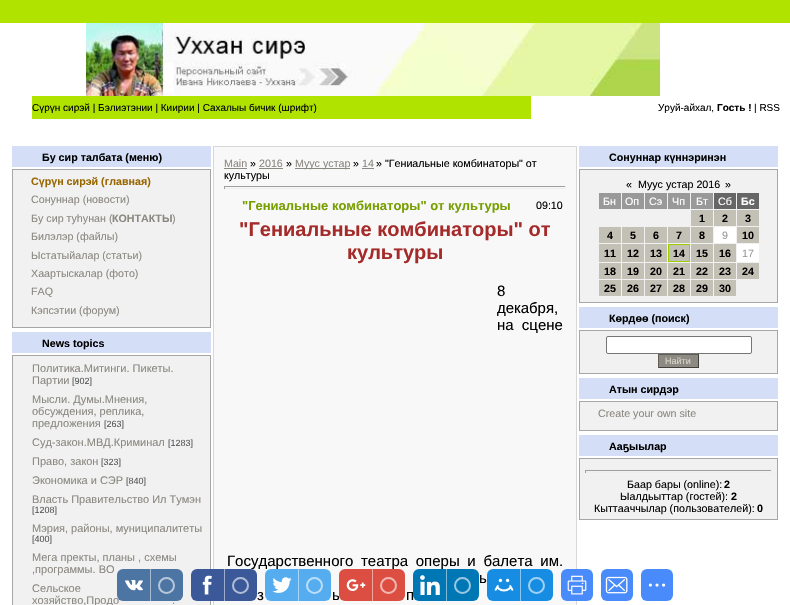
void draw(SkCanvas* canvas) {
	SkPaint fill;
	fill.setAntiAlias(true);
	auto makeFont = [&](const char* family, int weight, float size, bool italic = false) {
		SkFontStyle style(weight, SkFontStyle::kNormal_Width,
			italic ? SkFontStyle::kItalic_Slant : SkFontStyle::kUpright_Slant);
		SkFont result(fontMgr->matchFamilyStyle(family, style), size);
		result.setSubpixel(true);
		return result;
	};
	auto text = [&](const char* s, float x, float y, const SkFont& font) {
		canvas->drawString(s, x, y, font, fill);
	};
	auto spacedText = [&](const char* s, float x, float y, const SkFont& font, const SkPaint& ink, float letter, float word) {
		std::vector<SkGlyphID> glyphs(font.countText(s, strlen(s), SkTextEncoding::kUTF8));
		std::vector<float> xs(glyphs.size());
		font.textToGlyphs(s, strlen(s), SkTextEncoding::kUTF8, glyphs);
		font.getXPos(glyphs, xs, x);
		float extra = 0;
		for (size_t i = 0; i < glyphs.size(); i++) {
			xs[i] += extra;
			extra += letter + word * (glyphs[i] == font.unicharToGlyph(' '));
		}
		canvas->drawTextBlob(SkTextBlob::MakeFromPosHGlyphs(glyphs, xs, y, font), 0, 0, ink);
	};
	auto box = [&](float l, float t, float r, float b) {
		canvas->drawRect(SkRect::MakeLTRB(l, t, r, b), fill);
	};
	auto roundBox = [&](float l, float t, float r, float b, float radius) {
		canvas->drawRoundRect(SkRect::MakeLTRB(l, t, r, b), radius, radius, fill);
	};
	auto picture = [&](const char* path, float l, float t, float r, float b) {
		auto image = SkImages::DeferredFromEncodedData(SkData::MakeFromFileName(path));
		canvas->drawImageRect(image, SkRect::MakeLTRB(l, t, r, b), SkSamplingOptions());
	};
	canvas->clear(0xFFFFFFFF);
	fill.setColor(0xFFB0E300);
	box(0, 0, 790, 23);
	picture("image0.png", 86, 23, 660, 96);
	box(32, 96, 531, 119);
	fill.setColor(0xFFD4DFF7);
	box(12, 146, 211, 167);
	fill.setColor(0xFFF1F1F1);
	canvas->drawRect(SkRect::MakeLTRB(12.5f, 169.5f, 210.5f, 327.5f), fill);
	fill.setStyle(SkPaint::kStroke_Style);
	fill.setStrokeWidth(1);
	fill.setColor(0xFFA7A6A6);
	canvas->drawRect(SkRect::MakeLTRB(12.5f, 169.5f, 210.5f, 327.5f), fill);
	fill.setStyle(SkPaint::kFill_Style);
	fill.setColor(0xFFD4DFF7);
	box(12, 332, 211, 353);
	fill.setColor(0xFFF1F1F1);
	canvas->drawRect(SkRect::MakeLTRB(12.5f, 355.5f, 210.5f, 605.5f), fill);
	fill.setStyle(SkPaint::kStroke_Style);
	fill.setColor(0xFFA7A6A6);
	canvas->drawRect(SkRect::MakeLTRB(12.5f, 355.5f, 210.5f, 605.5f), fill);
	fill.setColor(0xFFD7D7D7);
	canvas->drawRect(SkRect::MakeLTRB(213.5f, 146.5f, 576.5f, 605.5f), fill);
	fill.setStyle(SkPaint::kFill_Style);
	fill.setColor(0xFFF8F8F8);
	box(214, 147, 576, 605);
	fill.setColor(0xFF8B8881);
	box(224, 168, 247, 169);
	box(259, 168, 283, 169);
	box(295, 168, 350, 169);
	box(362, 168, 374, 169);
	fill.setColor(0xFF9F9F9F);
	box(224, 186, 566, 187);
	fill.setColor(0xFFEEEEEE);
	box(565, 186, 566, 189);
	box(224, 188, 566, 189);
	fill.setColor(0xFF9F9F9F);
	box(224, 186, 225, 189);
	fill.setColor(0xFFD4DFF7);
	box(579, 146, 778, 167);
	fill.setColor(0xFFF1F1F1);
	canvas->drawRect(SkRect::MakeLTRB(579.5f, 169.5f, 777.5f, 302.5f), fill);
	fill.setStyle(SkPaint::kStroke_Style);
	fill.setColor(0xFFA7A6A6);
	canvas->drawRect(SkRect::MakeLTRB(579.5f, 169.5f, 777.5f, 302.5f), fill);
	fill.setStyle(SkPaint::kFill_Style);
	fill.setColor(0xFF999999);
	box(599, 193, 621, 209);
	box(622, 193, 644, 209);
	box(645, 193, 667, 209);
	box(668, 193, 690, 209);
	box(691, 193, 713, 209);
	fill.setColor(0xFF666666);
	box(714, 193, 736, 209);
	box(737, 193, 759, 209);
	fill.setColor(0xFFC3C0B5);
	box(691, 210, 713, 226);
	box(714, 210, 736, 226);
	box(737, 210, 759, 226);
	box(599, 227, 621, 243);
	box(622, 227, 644, 243);
	box(645, 227, 667, 243);
	box(668, 227, 690, 243);
	box(691, 227, 713, 243);
	fill.setColor(0xFFFFFFFF);
	box(714, 227, 736, 243);
	fill.setColor(0xFFC3C0B5);
	box(737, 227, 759, 243);
	box(599, 244, 621, 262);
	box(622, 244, 644, 262);
	box(645, 244, 667, 262);
	canvas->drawRect(SkRect::MakeLTRB(668.5f, 244.5f, 689.5f, 261.5f), fill);
	fill.setStyle(SkPaint::kStroke_Style);
	fill.setColor(0xFF9CCF00);
	canvas->drawRect(SkRect::MakeLTRB(668.5f, 244.5f, 689.5f, 261.5f), fill);
	fill.setStyle(SkPaint::kFill_Style);
	fill.setColor(0xFFC3C0B5);
	box(691, 244, 713, 262);
	box(714, 244, 736, 262);
	fill.setColor(0xFFFFFFFF);
	box(737, 244, 759, 262);
	fill.setColor(0xFFC3C0B5);
	box(599, 263, 621, 279);
	box(622, 263, 644, 279);
	box(645, 263, 667, 279);
	box(668, 263, 690, 279);
	box(691, 263, 713, 279);
	box(714, 263, 736, 279);
	box(737, 263, 759, 279);
	box(599, 280, 621, 296);
	box(622, 280, 644, 296);
	box(645, 280, 667, 296);
	box(668, 280, 690, 296);
	box(691, 280, 713, 296);
	box(714, 280, 736, 296);
	fill.setColor(0xFFD4DFF7);
	box(579, 307, 778, 328);
	fill.setColor(0xFFF1F1F1);
	canvas->drawRect(SkRect::MakeLTRB(579.5f, 330.5f, 777.5f, 373.5f), fill);
	fill.setStyle(SkPaint::kStroke_Style);
	fill.setColor(0xFFA7A6A6);
	canvas->drawRect(SkRect::MakeLTRB(579.5f, 330.5f, 777.5f, 373.5f), fill);
	fill.setStyle(SkPaint::kFill_Style);
	fill.setColor(0xFFFFFFFF);
	canvas->drawRoundRect(SkRect::MakeLTRB(606.5f, 336.5f, 751.5f, 353.5f), 1.5f, 1.5f, fill);
	fill.setStyle(SkPaint::kStroke_Style);
	fill.setColor(0xFF767676);
	canvas->drawRoundRect(SkRect::MakeLTRB(606.5f, 336.5f, 751.5f, 353.5f), 1.5f, 1.5f, fill);
	fill.setStyle(SkPaint::kFill_Style);
	fill.setColor(0xFF8D8A83);
	box(659, 355, 698, 367);
	fill.setColor(0xFF615E58);
	box(658, 354, 699, 355);
	fill.setColor(0xFF413F3B);
	box(698, 354, 699, 368);
	box(658, 367, 699, 368);
	fill.setColor(0xFF615E58);
	box(658, 354, 659, 368);
	fill.setColor(0xFFD4DFF7);
	box(579, 378, 778, 399);
	fill.setColor(0xFFF1F1F1);
	canvas->drawRect(SkRect::MakeLTRB(579.5f, 401.5f, 777.5f, 430.5f), fill);
	fill.setStyle(SkPaint::kStroke_Style);
	fill.setColor(0xFFA7A6A6);
	canvas->drawRect(SkRect::MakeLTRB(579.5f, 401.5f, 777.5f, 430.5f), fill);
	fill.setStyle(SkPaint::kFill_Style);
	fill.setColor(0xFFD4DFF7);
	box(579, 435, 778, 456);
	fill.setColor(0xFFF1F1F1);
	canvas->drawRect(SkRect::MakeLTRB(579.5f, 458.5f, 777.5f, 519.5f), fill);
	fill.setStyle(SkPaint::kStroke_Style);
	fill.setColor(0xFFA7A6A6);
	canvas->drawRect(SkRect::MakeLTRB(579.5f, 458.5f, 777.5f, 519.5f), fill);
	fill.setStyle(SkPaint::kFill_Style);
	fill.setColor(0xFF9F9F9F);
	box(585, 470, 772, 471);
	fill.setColor(0xFFEEEEEE);
	box(771, 470, 772, 473);
	box(585, 472, 772, 473);
	fill.setColor(0xFF9F9F9F);
	box(585, 470, 586, 473);
	fill.setColor(0xFF498BFA);
	roundBox(601, 569, 633, 601, 6);
	picture("image8.png", 605, 576, 628, 594);
	roundBox(641, 569, 673, 601, 6);
	picture("image9.png", 648, 583, 666, 587);
	auto font1 = makeFont("Liberation Sans", 400, 10);
	fill.setColor(0xFF000000);
	text("Сүрүн сирэй | Бэлиэтэнии | Киирии | Сахалыы бичик (шрифт)", 32, 111, font1);
	text("Уруй-айхал,", 658, 111, font1);
	auto font2 = makeFont("Liberation Sans", 700, 10);
	text("Гость !", 717, 111, font2);
	text("| RSS", 754, 111, font1);
	auto font3 = makeFont("Liberation Sans", 700, 10.7f);
	text("Бу сир талбата (меню)", 42, 161, font3);
	fill.setColor(0xFF996600);
	text("Сүрүн сирэй (главная)", 31, 185, font3);
	auto font4 = makeFont("Liberation Sans", 400, 10.7f);
	fill.setColor(0xFF8B8881);
	text("Сонуннар (новости)", 31, 203, font4);
	text("Бу сир туһунан (", 31, 222, font4);
	text("КОНТАКТЫ", 112, 222, font3);
	text(")", 172, 222, font4);
	text("Билэлэр (файлы)", 31, 240, font4);
	text("Ыстатыйалар (статьи)", 31, 259, font4);
	text("Хаартыскалар (фото)", 31, 277, font4);
	text("FAQ", 31, 295, font4);
	text("Кэпсэтии (форум)", 31, 314, font4);
	fill.setColor(0xFF000000);
	text("News topics", 42, 347, font3);
	auto font5 = makeFont("Liberation Sans", 400, 11);
	fill.setColor(0xFF8B8881);
	text("Политика.Митинги. Пикеты.", 32, 372, font5);
	text("Партии", 32, 384, font5);
	auto font6 = makeFont("Liberation Sans", 400, 9);
	fill.setColor(0xFF555555);
	text("[902]", 72, 384, font6);
	fill.setColor(0xFF8B8881);
	text("Мысли. Думы.Мнения,", 32, 403, font5);
	text("обсуждения, реплика,", 32, 415, font5);
	text("предложения", 32, 427, font5);
	fill.setColor(0xFF555555);
	text("[263]", 104, 427, font6);
	fill.setColor(0xFF8B8881);
	text("Суд-закон.МВД.Криминал", 32, 446, font5);
	fill.setColor(0xFF555555);
	text("[1283]", 168, 446, font6);
	fill.setColor(0xFF8B8881);
	text("Право, закон", 32, 465, font5);
	fill.setColor(0xFF555555);
	text("[323]", 101, 465, font6);
	fill.setColor(0xFF8B8881);
	text("Экономика и СЭР", 32, 484, font5);
	fill.setColor(0xFF555555);
	text("[840]", 126, 484, font6);
	fill.setColor(0xFF8B8881);
	text("Власть Правительство Ил Тумэн", 32, 503, font5);
	fill.setColor(0xFF555555);
	text("[1208]", 32, 513, font6);
	fill.setColor(0xFF8B8881);
	text("Мэрия, районы, муниципалитеты", 32, 532, font5);
	fill.setColor(0xFF555555);
	text("[400]", 32, 542, font6);
	fill.setColor(0xFF8B8881);
	text("Мега пректы, планы , схемы", 32, 561, font5);
	text(",программы. ВО", 32, 573, font5);
	text("Сельское", 32, 592, font5);
	text("хозяйство,Продо", 32, 604, font5);
	text(".", 172, 604, font5);
	text("Main", 224, 167, font4);
	fill.setColor(0xFF000000);
	text("»", 250, 167, font4);
	fill.setColor(0xFF8B8881);
	text("2016", 259, 167, font4);
	fill.setColor(0xFF000000);
	text("»", 286, 167, font4);
	fill.setColor(0xFF8B8881);
	text("Муус устар", 295, 167, font4);
	fill.setColor(0xFF000000);
	text("»", 353, 167, font4);
	fill.setColor(0xFF8B8881);
	text("14", 362, 167, font4);
	fill.setColor(0xFF000000);
	text("» \"Гениальные комбинаторы\" от", 376, 167, font4);
	text("культуры", 224, 179, font4);
	auto font7 = makeFont("Liberation Sans", 700, 13);
	fill.setColor(0xFF779F00);
	text("\"Гениальные комбинаторы\" от культуры", 242, 210, font7);
	fill.setColor(0xFF000000);
	text("09:10", 536, 209, font4);
	auto font8 = makeFont("Liberation Sans", 700, 20);
	fill.setColor(0xFFA52A2A);
	text("\"Гениальные комбинаторы\" от", 239, 236, font8);
	text("культуры", 347, 259, font8);
	auto font9 = makeFont("Liberation Sans", 400, 15);
	fill.setColor(0xFF000000);
	text("8", 497, 296, font9);
	text("декабря,", 497, 313, font9);
	spacedText("на сцене", 497, 330, font9, fill, 0, 4);
	spacedText("Государственного театра оперы и балета им.", 227, 566, font9, fill, 0, 3.5f);
	spacedText("ь", 479, 583, font9, fill, 0, 3);
	spacedText("з", 257, 600, font9, fill, 0, 23);
	spacedText("ь", 332, 600, font9, fill, 0, 23);
	spacedText("п", 406, 600, font9, fill, 0, 23);
	text("Сонуннар күннэринэн", 609, 161, font3);
	text("«", 626, 188, font4);
	text("Муус устар 2016", 638, 188, font4);
	text("»", 725, 188, font4);
	fill.setColor(0xFFFFFFFF);
	text("Бн", 603, 205, font4);
	text("Оп", 625, 205, font4);
	text("Сэ", 649, 205, font4);
	text("Чп", 672, 205, font4);
	text("Бт", 696, 205, font4);
	text("Сб", 718, 205, font4);
	text("Бс", 741, 205, font3);
	fill.setColor(0xFF000000);
	text("1", 699, 222, font3);
	text("2", 722, 222, font3);
	text("3", 745, 222, font3);
	text("4", 607, 239, font3);
	text("5", 630, 239, font3);
	text("6", 653, 239, font3);
	text("7", 676, 239, font3);
	text("8", 699, 239, font3);
	fill.setColor(0xFF999999);
	text("9", 722, 239, font4);
	fill.setColor(0xFF000000);
	text("10", 742, 239, font3);
	text("11", 604, 257, font3);
	text("12", 627, 257, font3);
	text("13", 650, 257, font3);
	text("14", 673, 257, font3);
	text("15", 696, 257, font3);
	text("16", 719, 257, font3);
	fill.setColor(0xFF999999);
	text("17", 742, 257, font4);
	fill.setColor(0xFF000000);
	text("18", 604, 275, font3);
	text("19", 627, 275, font3);
	text("20", 650, 275, font3);
	text("21", 673, 275, font3);
	text("22", 696, 275, font3);
	text("23", 719, 275, font3);
	text("24", 742, 275, font3);
	text("25", 604, 292, font3);
	text("26", 627, 292, font3);
	text("27", 650, 292, font3);
	text("28", 673, 292, font3);
	text("29", 696, 292, font3);
	text("30", 719, 292, font3);
	text("Көрдөө (поиск)", 609, 322, font3);
	fill.setColor(0xFFDAD7CC);
	text("Найти", 665, 364, font6);
	fill.setColor(0xFF000000);
	text("Атын сирдэр", 609, 393, font3);
	fill.setColor(0xFF8B8881);
	text("Create your own site", 598, 417, font4);
	fill.setColor(0xFF000000);
	text("Ааҕыылар", 609, 450, font3);
	text("Баар бары (online):", 627, 488, font4);
	text("2", 724, 488, font3);
	text("Ыалдьыттар (гостей):", 620, 500, font4);
	text("2", 731, 500, font3);
	text("Кыттааччылар (пользователей):", 594, 512, font4);
	text("0", 757, 512, font3);
	fill.setColor(0xFF4D75A3);
	roundBox(117, 569, 183, 601, 6);
	picture("image1.png", 125, 580, 143, 591);
	fill.setColor(0xFFA6BAD1);
	box(150, 569, 151, 601);
	fill.setStyle(SkPaint::kStroke_Style);
	fill.setStrokeWidth(2);
	fill.setColor(0xFFB8C8DA);
	canvas->drawCircle(166.5f, 585.5f, 7.5f, fill);
	fill.setStyle(SkPaint::kFill_Style);
	fill.setColor(0xFF3B5998);
	roundBox(191, 569, 257, 601, 6);
	picture("image2.png", 202, 575, 212, 595);
	fill.setColor(0xFF9DACCC);
	box(224, 569, 225, 601);
	fill.setStyle(SkPaint::kStroke_Style);
	fill.setColor(0xFFB1BDD6);
	canvas->drawCircle(240.5f, 585.5f, 7.5f, fill);
	fill.setStyle(SkPaint::kFill_Style);
	fill.setColor(0xFF55ACEE);
	roundBox(265, 569, 331, 601, 6);
	picture("image3.png", 272, 577, 292, 593);
	fill.setColor(0xFFAAD6F7);
	box(298, 569, 299, 601);
	fill.setStyle(SkPaint::kStroke_Style);
	fill.setColor(0xFFBBDEF8);
	canvas->drawCircle(314.5f, 585.5f, 7.5f, fill);
	fill.setStyle(SkPaint::kFill_Style);
	fill.setColor(0xFFDC4E41);
	roundBox(339, 569, 405, 601, 6);
	picture("image4.png", 346, 579, 366, 591);
	fill.setColor(0xFFEEA7A0);
	box(372, 569, 373, 601);
	fill.setStyle(SkPaint::kStroke_Style);
	fill.setColor(0xFFF1B8B3);
	canvas->drawCircle(388.5f, 585.5f, 7.5f, fill);
	fill.setStyle(SkPaint::kFill_Style);
	fill.setColor(0xFF0077B5);
	roundBox(413, 569, 479, 601, 6);
	picture("image5.png", 420, 575, 440, 595);
	fill.setColor(0xFF80BBDA);
	box(446, 569, 447, 601);
	fill.setStyle(SkPaint::kStroke_Style);
	fill.setColor(0xFF99C9E1);
	canvas->drawCircle(462.5f, 585.5f, 7.5f, fill);
	fill.setStyle(SkPaint::kFill_Style);
	fill.setColor(0xFF168DE2);
	roundBox(487, 569, 553, 601, 6);
	picture("image6.png", 494, 578, 514, 592);
	fill.setColor(0xFF8BC6F1);
	box(520, 569, 521, 601);
	fill.setStyle(SkPaint::kStroke_Style);
	fill.setColor(0xFFA2D1F3);
	canvas->drawCircle(536.5f, 585.5f, 7.5f, fill);
	fill.setStyle(SkPaint::kFill_Style);
	fill.setColor(0xFF498BFA);
	roundBox(561, 569, 593, 601, 6);
	picture("image7.png", 567, 575, 587, 595);
}
